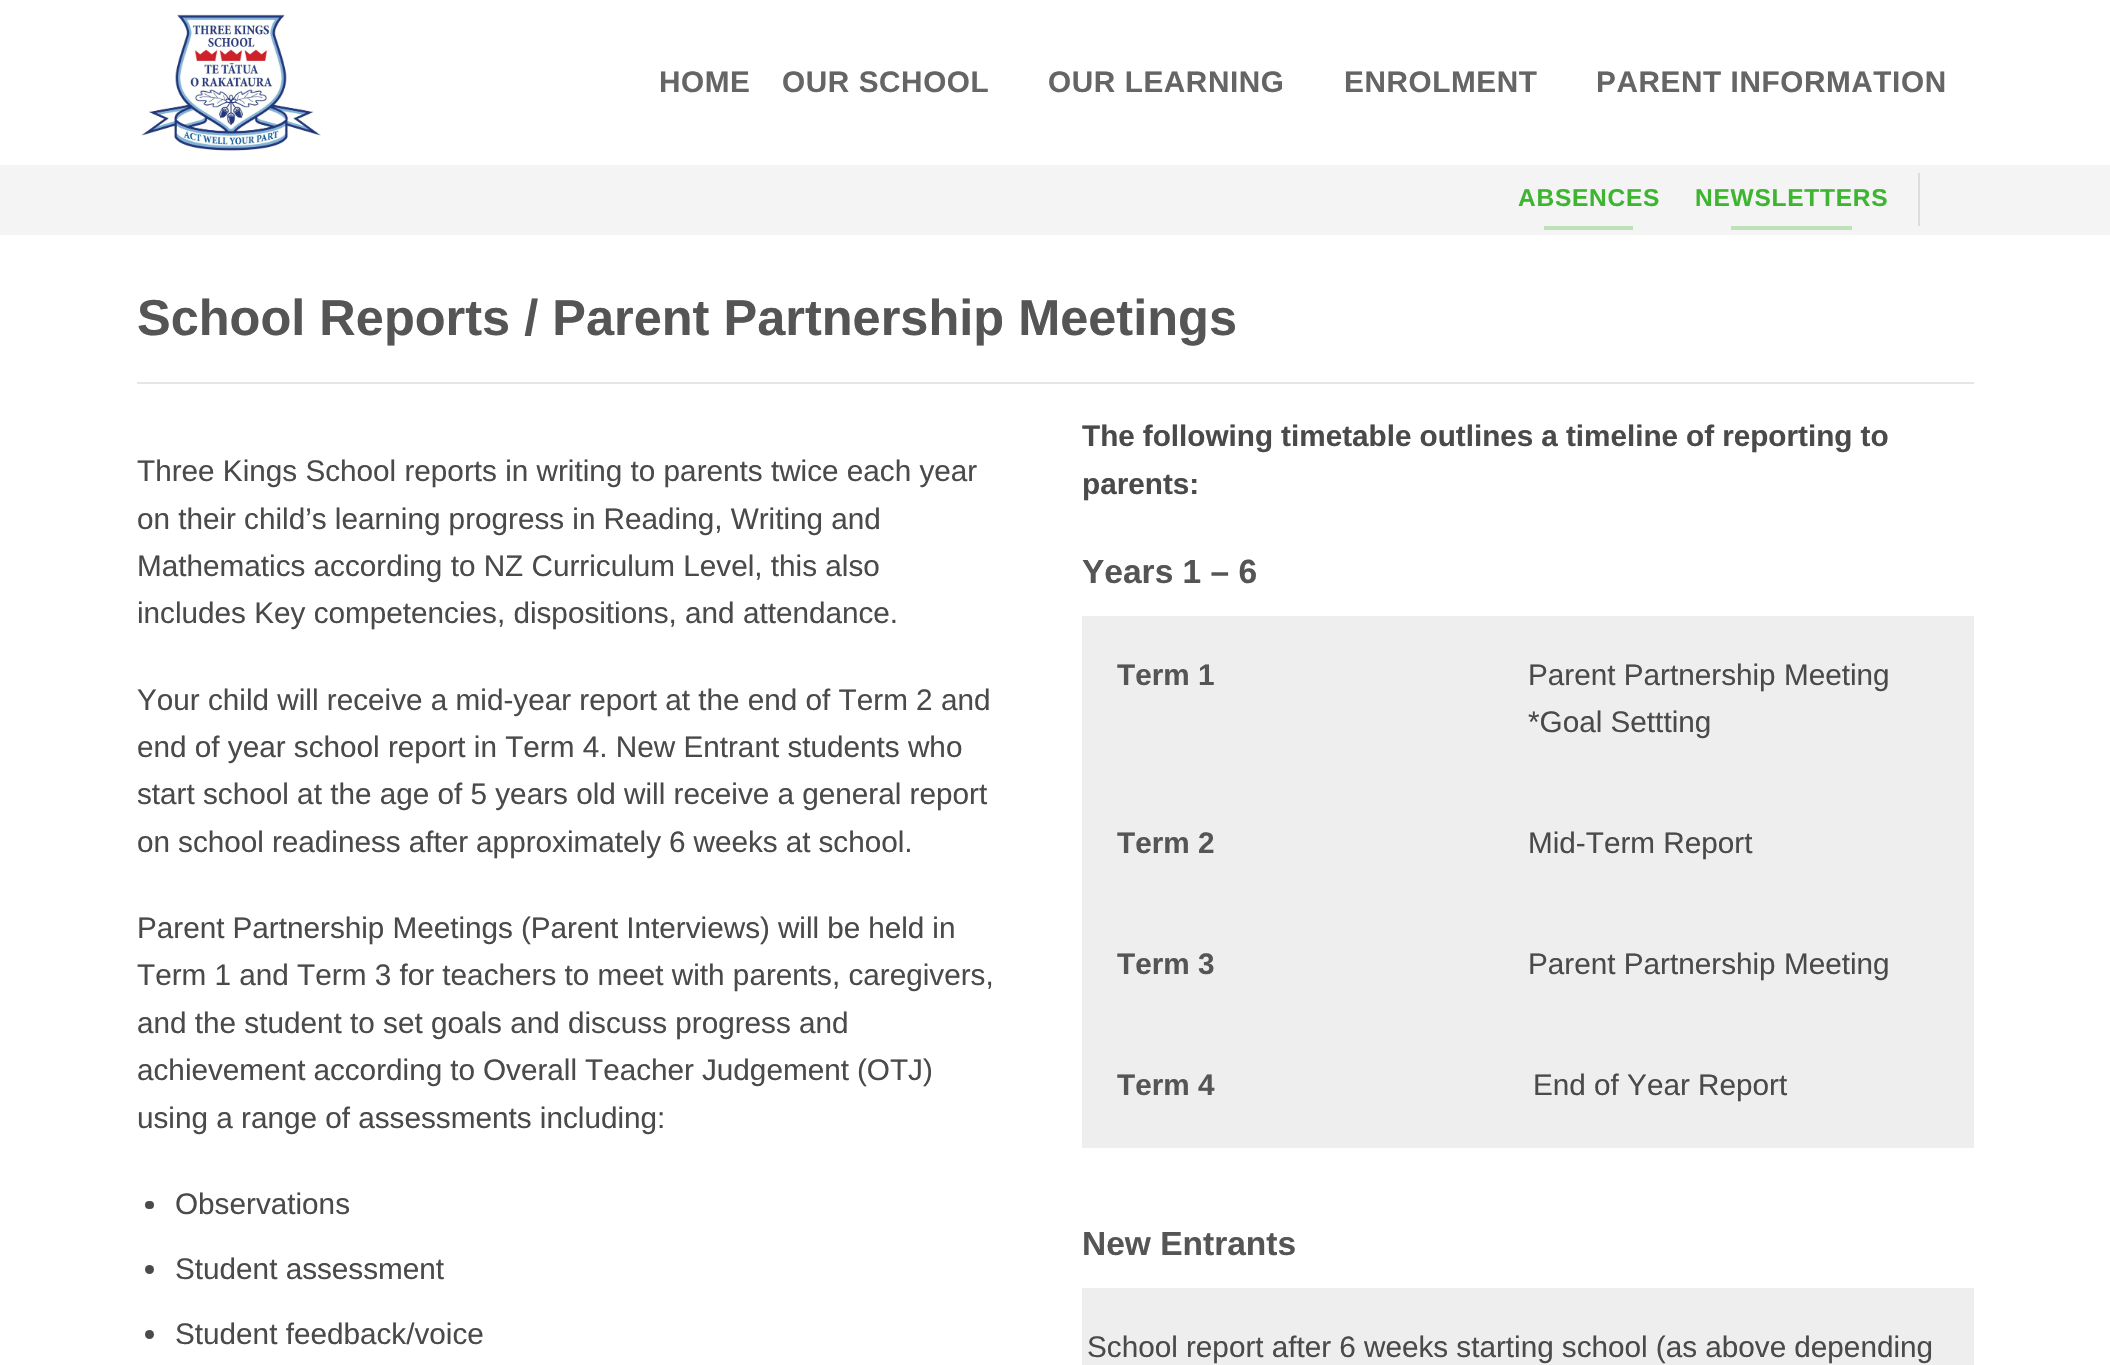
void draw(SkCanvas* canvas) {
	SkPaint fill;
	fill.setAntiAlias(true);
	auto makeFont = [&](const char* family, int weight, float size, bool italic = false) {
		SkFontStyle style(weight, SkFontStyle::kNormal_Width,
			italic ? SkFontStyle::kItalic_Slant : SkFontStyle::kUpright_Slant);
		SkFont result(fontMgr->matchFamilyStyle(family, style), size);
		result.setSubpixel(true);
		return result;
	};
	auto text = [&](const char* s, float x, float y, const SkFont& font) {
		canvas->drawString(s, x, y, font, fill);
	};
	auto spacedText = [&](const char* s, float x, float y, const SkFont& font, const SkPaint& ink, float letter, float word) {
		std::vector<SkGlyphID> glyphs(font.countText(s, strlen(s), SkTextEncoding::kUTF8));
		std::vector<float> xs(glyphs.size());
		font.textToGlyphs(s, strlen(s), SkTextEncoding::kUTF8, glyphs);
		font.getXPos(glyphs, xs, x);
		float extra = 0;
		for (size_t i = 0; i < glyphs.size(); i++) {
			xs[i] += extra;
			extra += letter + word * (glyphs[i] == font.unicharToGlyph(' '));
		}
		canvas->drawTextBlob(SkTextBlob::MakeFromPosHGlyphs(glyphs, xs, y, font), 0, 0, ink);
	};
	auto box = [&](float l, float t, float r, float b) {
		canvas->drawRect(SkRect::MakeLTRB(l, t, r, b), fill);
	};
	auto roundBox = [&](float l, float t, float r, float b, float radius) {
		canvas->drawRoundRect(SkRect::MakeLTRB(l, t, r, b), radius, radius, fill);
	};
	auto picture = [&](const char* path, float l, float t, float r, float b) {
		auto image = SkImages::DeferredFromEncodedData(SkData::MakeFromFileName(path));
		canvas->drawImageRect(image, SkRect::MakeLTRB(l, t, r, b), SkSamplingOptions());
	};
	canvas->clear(0xFFFFFFFF);
	picture("image0.png", 141, 14, 321, 151);
	fill.setColor(0xFFF4F4F4);
	box(0, 165, 2110, 235);
	fill.setColor(0xFFBDE1B9);
	box(1544, 226, 1633, 230);
	box(1731, 226, 1852, 230);
	fill.setColor(0xFFDCDCDC);
	box(1918, 173, 1920, 226);
	fill.setColor(0xFFE6E6E6);
	box(137, 382, 1974, 384);
	fill.setColor(0xFF4A4A4A);
	roundBox(145, 1201, 154, 1209, 4);
	canvas->drawCircle(149.5f, 1269.5f, 4.5f, fill);
	canvas->drawCircle(149.5f, 1334.5f, 4.5f, fill);
	fill.setColor(0xFFEEEEEE);
	box(1082, 616, 1974, 786);
	box(1082, 786, 1974, 907);
	box(1082, 907, 1974, 1027);
	box(1082, 1027, 1974, 1148);
	box(1082, 1288, 1974, 1365);
	auto font1 = makeFont("Liberation Sans", 700, 29.7f);
	fill.setColor(0xFF656565);
	spacedText("HOME", 659, 92, font1, fill, 0.6f, 0);
	spacedText("OUR SCHOOL", 782, 92, font1, fill, 0.6f, 0);
	spacedText("OUR LEARNING", 1048, 92, font1, fill, 0.6f, 0);
	spacedText("ENROLMENT", 1344, 92, font1, fill, 0.6f, 0);
	spacedText("PARENT INFORMATION", 1596, 92, font1, fill, 0.6f, 0);
	auto font2 = makeFont("Liberation Sans", 700, 24.5f);
	fill.setColor(0xFF3EB530);
	spacedText("ABSENCES", 1518, 206, font2, fill, 0.75f, 0);
	spacedText("NEWSLETTERS", 1695, 206, font2, fill, 0.75f, 0);
	auto font3 = makeFont("Liberation Sans", 700, 50.5f);
	fill.setColor(0xFF555555);
	text("School Reports / Parent Partnership Meetings", 137, 335, font3);
	auto font4 = makeFont("Liberation Sans", 400, 29.7f);
	fill.setColor(0xFF4A4A4A);
	text("Three Kings School reports in writing to parents twice each year", 137, 481, font4);
	spacedText("on their child’s learning progress in Reading, Writing and", 137, 529, font4, fill, 0, -0.1f);
	text("Mathematics according to NZ Curriculum Level, this also", 137, 576, font4);
	text("includes Key competencies, dispositions, and attendance.", 137, 623, font4);
	text("Your child will receive a mid-year report at the end of Term 2 and", 137, 710, font4);
	text("end of year school report in Term 4. New Entrant students who", 137, 757, font4);
	text("start school at the age of 5 years old will receive a general report", 137, 804, font4);
	spacedText("on school readiness after approximately 6 weeks at school.", 137, 852, font4, fill, 0, -0.25f);
	spacedText("Parent Partnership Meetings (Parent Interviews) will be held in", 137, 938, font4, fill, 0, -0.25f);
	text("Term 1 and Term 3 for teachers to meet with parents, caregivers,", 137, 985, font4);
	text("and the student to set goals and discuss progress and", 137, 1033, font4);
	spacedText("achievement according to Overall Teacher Judgement (OTJ)", 137, 1080, font4, fill, 0, -0.25f);
	text("using a range of assessments including:", 137, 1128, font4);
	text("Observations", 175, 1214, font4);
	text("Student assessment", 175, 1279, font4);
	text("Student feedback/voice", 175, 1344, font4);
	spacedText("The following timetable outlines a timeline of reporting to", 1082, 446, font1, fill, 0, -0.25f);
	text("parents:", 1082, 494, font1);
	auto font5 = makeFont("Liberation Sans", 700, 33.5f);
	fill.setColor(0xFF555555);
	text("Years 1 – 6", 1082, 583, font5);
	text("Term 1", 1117, 685, font1);
	fill.setColor(0xFF4A4A4A);
	text("Parent Partnership Meeting", 1528, 685, font4);
	text("*Goal Settting", 1528, 732, font4);
	fill.setColor(0xFF555555);
	text("Term 2", 1117, 853, font1);
	fill.setColor(0xFF4A4A4A);
	text("Mid-Term Report", 1528, 853, font4);
	fill.setColor(0xFF555555);
	text("Term 3", 1117, 974, font1);
	fill.setColor(0xFF4A4A4A);
	text("Parent Partnership Meeting", 1528, 974, font4);
	fill.setColor(0xFF555555);
	text("Term 4", 1117, 1095, font1);
	fill.setColor(0xFF4A4A4A);
	text("End of Year Report", 1533, 1095, font4);
	fill.setColor(0xFF555555);
	text("New Entrants", 1082, 1255, font5);
	fill.setColor(0xFF4A4A4A);
	spacedText("School report after 6 weeks starting school (as above depending", 1087, 1357, font4, fill, 0, -0.1f);
}
